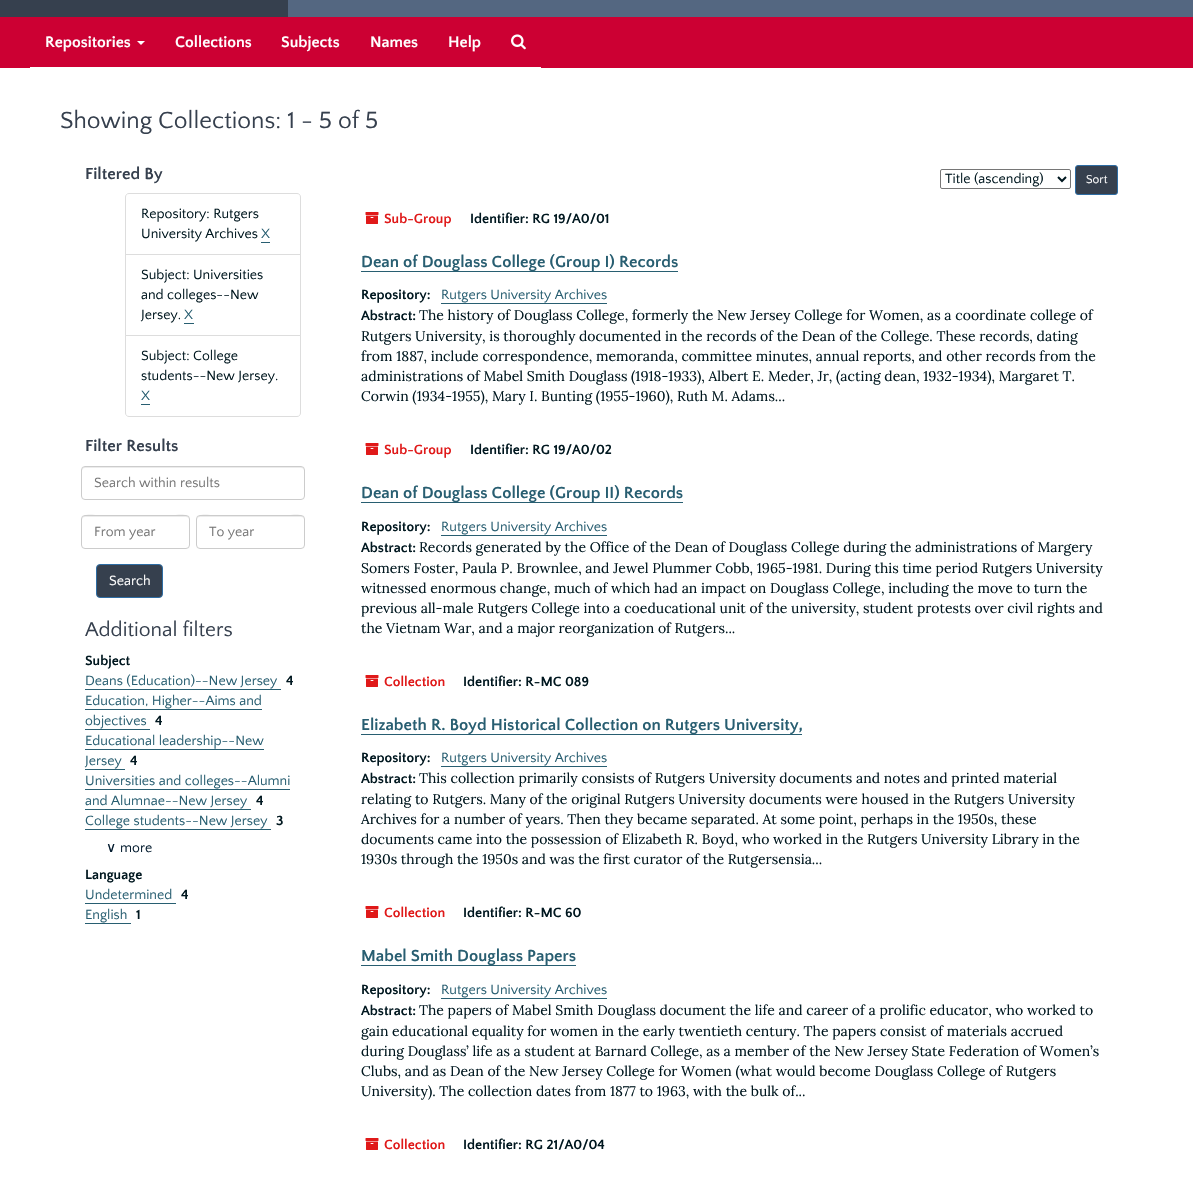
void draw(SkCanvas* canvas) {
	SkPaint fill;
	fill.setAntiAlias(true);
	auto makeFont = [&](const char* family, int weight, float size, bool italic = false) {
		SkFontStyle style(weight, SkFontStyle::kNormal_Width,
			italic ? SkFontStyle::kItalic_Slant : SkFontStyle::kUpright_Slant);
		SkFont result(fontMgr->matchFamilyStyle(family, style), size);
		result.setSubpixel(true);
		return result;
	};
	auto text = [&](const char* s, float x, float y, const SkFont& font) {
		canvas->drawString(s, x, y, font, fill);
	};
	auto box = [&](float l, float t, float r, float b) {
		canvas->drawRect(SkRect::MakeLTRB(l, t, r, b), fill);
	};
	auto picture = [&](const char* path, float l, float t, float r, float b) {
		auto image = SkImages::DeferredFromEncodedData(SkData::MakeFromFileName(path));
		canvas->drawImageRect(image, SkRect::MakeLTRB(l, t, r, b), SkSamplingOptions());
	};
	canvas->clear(0xFFFFFFFF);
	fill.setColor(0xFF546781);
	box(288, 0, 1193, 17);
	fill.setColor(0xFF36404E);
	box(0, 0, 288, 17);
	fill.setColor(0xFFCC0033);
	box(0, 17, 1193, 68);
	fill.setColor(0xFFFFFFFF);
	box(30, 67, 541, 68);
	canvas->drawPath(SkPathBuilder().moveTo(137, 41).lineTo(145, 41).lineTo(141, 45).close().detach(), fill);
	picture("image0.png", 511, 34, 526, 50);
	fill.setStyle(SkPaint::kStroke_Style);
	fill.setStrokeWidth(1);
	fill.setColor(0xFFDDDDDD);
	canvas->drawPath(SkPathBuilder().moveTo(129, 193.5f).lineTo(297, 193.5f).cubicTo(299, 193.5f, 300.5f, 195, 300.5f, 197).lineTo(300.5f, 254.5f).lineTo(125.5f, 254.5f).lineTo(125.5f, 197).cubicTo(125.5f, 195, 127, 193.5f, 129, 193.5f).close().detach(), fill);
	fill.setStyle(SkPaint::kFill_Style);
	fill.setColor(0xFF285E71);
	box(261, 242, 270, 243);
	fill.setStyle(SkPaint::kStroke_Style);
	fill.setColor(0xFFDDDDDD);
	canvas->drawRect(SkRect::MakeLTRB(125.5f, 254.5f, 300.5f, 335.5f), fill);
	fill.setStyle(SkPaint::kFill_Style);
	fill.setColor(0xFF285E71);
	box(184, 323, 194, 324);
	fill.setColor(0xFFFFFFFF);
	canvas->drawPath(SkPathBuilder().moveTo(125.5f, 335.5f).lineTo(300.5f, 335.5f).lineTo(300.5f, 413).cubicTo(300.5f, 415, 299, 416.5f, 297, 416.5f).lineTo(129, 416.5f).cubicTo(127, 416.5f, 125.5f, 415, 125.5f, 413).close().detach(), fill);
	fill.setStyle(SkPaint::kStroke_Style);
	fill.setColor(0xFFDDDDDD);
	canvas->drawPath(SkPathBuilder().moveTo(125.5f, 335.5f).lineTo(300.5f, 335.5f).lineTo(300.5f, 413).cubicTo(300.5f, 415, 299, 416.5f, 297, 416.5f).lineTo(129, 416.5f).cubicTo(127, 416.5f, 125.5f, 415, 125.5f, 413).close().detach(), fill);
	fill.setStyle(SkPaint::kFill_Style);
	fill.setColor(0xFF285E71);
	box(141, 404, 150, 405);
	fill.setColor(0xFFECECEC);
	canvas->drawPath(SkPathBuilder().moveTo(85, 468).lineTo(301, 468).cubicTo(303, 468, 304, 469, 304, 471).lineTo(304, 470).cubicTo(304, 468, 303, 467, 301, 467).lineTo(85, 467).cubicTo(83, 467, 82, 468, 82, 470).lineTo(82, 471).cubicTo(82, 469, 83, 468, 85, 468).close().detach(), fill);
	fill.setStyle(SkPaint::kStroke_Style);
	fill.setColor(0xFFCCCCCC);
	canvas->drawRoundRect(SkRect::MakeLTRB(81.5f, 466.5f, 304.5f, 499.5f), 3.5f, 3.5f, fill);
	fill.setStyle(SkPaint::kFill_Style);
	fill.setColor(0xFFECECEC);
	canvas->drawPath(SkPathBuilder().moveTo(85, 517).lineTo(186, 517).cubicTo(188, 517, 189, 518, 189, 520).cubicTo(189, 511, 172, 516, 169, 516).lineTo(102, 516).cubicTo(99, 516, 82, 511, 82, 520).cubicTo(82, 518, 83, 517, 85, 517).close().detach(), fill);
	fill.setStyle(SkPaint::kStroke_Style);
	fill.setColor(0xFFCCCCCC);
	canvas->drawRoundRect(SkRect::MakeLTRB(81.5f, 515.5f, 189.5f, 548.5f), 3.5f, 3.5f, fill);
	fill.setStyle(SkPaint::kFill_Style);
	fill.setColor(0xFFECECEC);
	canvas->drawPath(SkPathBuilder().moveTo(200, 517).lineTo(301, 517).cubicTo(303, 517, 304, 518, 304, 520).cubicTo(304, 511, 287, 516, 284, 516).lineTo(217, 516).cubicTo(214, 516, 197, 511, 197, 520).cubicTo(197, 518, 198, 517, 200, 517).close().detach(), fill);
	fill.setStyle(SkPaint::kStroke_Style);
	fill.setColor(0xFFCCCCCC);
	canvas->drawRoundRect(SkRect::MakeLTRB(196.5f, 515.5f, 304.5f, 548.5f), 3.5f, 3.5f, fill);
	fill.setStyle(SkPaint::kFill_Style);
	fill.setColor(0xFF36404E);
	canvas->drawRoundRect(SkRect::MakeLTRB(96.5f, 564.5f, 162.5f, 597.5f), 3.5f, 3.5f, fill);
	fill.setStyle(SkPaint::kStroke_Style);
	fill.setColor(0xFF2E6DA4);
	canvas->drawRoundRect(SkRect::MakeLTRB(96.5f, 564.5f, 162.5f, 597.5f), 3.5f, 3.5f, fill);
	fill.setStyle(SkPaint::kFill_Style);
	fill.setColor(0xFF285E71);
	box(85, 689, 281, 690);
	box(85, 709, 262, 710);
	box(85, 729, 150, 730);
	box(85, 749, 264, 750);
	box(85, 769, 125, 770);
	box(85, 789, 290, 790);
	box(85, 809, 251, 810);
	box(85, 829, 271, 830);
	box(85, 903, 176, 904);
	box(85, 923, 131, 924);
	fill.setStyle(SkPaint::kStroke_Style);
	fill.setColor(0xFF767676);
	canvas->drawRoundRect(SkRect::MakeLTRB(940.5f, 169.5f, 1070.5f, 188.5f), 1.5f, 1.5f, fill);
	fill.setStrokeWidth(2);
	fill.setColor(0xFF00171F);
	canvas->drawPath(SkPathBuilder().moveTo(1058, 177).lineTo(1062, 181).lineTo(1066, 177).detach(), fill);
	fill.setStyle(SkPaint::kFill_Style);
	fill.setColor(0xFF36404E);
	canvas->drawRoundRect(SkRect::MakeLTRB(1075.5f, 165.5f, 1117.5f, 194.5f), 2.5f, 2.5f, fill);
	fill.setStyle(SkPaint::kStroke_Style);
	fill.setStrokeWidth(1);
	fill.setColor(0xFF2E6DA4);
	canvas->drawRoundRect(SkRect::MakeLTRB(1075.5f, 165.5f, 1117.5f, 194.5f), 2.5f, 2.5f, fill);
	picture("image1.png", 365, 212, 379, 224);
	fill.setStyle(SkPaint::kFill_Style);
	fill.setColor(0xFF285E71);
	box(361, 271, 678, 272);
	box(441, 303, 607, 304);
	picture("image1.png", 365, 443, 379, 455);
	box(361, 502, 683, 503);
	box(441, 535, 607, 536);
	picture("image1.png", 365, 675, 379, 687);
	box(361, 734, 802, 735);
	box(441, 766, 607, 767);
	picture("image1.png", 365, 906, 379, 918);
	box(361, 965, 576, 966);
	box(441, 998, 607, 999);
	picture("image1.png", 365, 1138, 379, 1150);
	auto font1 = makeFont("Quattrocento Sans", 700, 16);
	fill.setColor(0xFFFFFFFF);
	text("Repositories", 45, 47, font1);
	text("Collections", 175, 47, font1);
	text("Subjects", 281, 47, font1);
	text("Names", 370, 47, font1);
	text("Help", 448, 47, font1);
	auto font2 = makeFont("Quattrocento Sans", 400, 24.5f);
	fill.setColor(0xFF36404E);
	text("Showing Collections: 1 - 5 of 5", 60, 128, font2);
	auto font3 = makeFont("Quattrocento Sans", 700, 16.8f);
	text("Filtered By", 85, 179, font3);
	auto font4 = makeFont("Quattrocento Sans", 400, 14);
	fill.setColor(0xFF00171F);
	text("Repository: Rutgers", 141, 218, font4);
	text("University Archives", 141, 238, font4);
	fill.setColor(0xFF285E71);
	text("X", 261, 238, font4);
	fill.setColor(0xFF00171F);
	text("Subject: Universities", 141, 279, font4);
	text("and colleges--New", 141, 299, font4);
	text("Jersey.", 141, 319, font4);
	fill.setColor(0xFF285E71);
	text("X", 184, 319, font4);
	fill.setColor(0xFF00171F);
	text("Subject: College", 141, 360, font4);
	text("students--New Jersey.", 141, 380, font4);
	fill.setColor(0xFF285E71);
	text("X", 141, 400, font4);
	fill.setColor(0xFF36404E);
	text("Filter Results", 85, 451, font3);
	fill.setColor(0xFF767676);
	text("Search within results", 94, 487, font4);
	text("From year", 94, 536, font4);
	text("To year", 209, 536, font4);
	fill.setColor(0xFFFFFFFF);
	text("Search", 109, 585, font4);
	auto font5 = makeFont("Quattrocento Sans", 400, 21);
	fill.setColor(0xFF36404E);
	text("Additional filters", 85, 636, font5);
	auto font6 = makeFont("Quattrocento Sans", 700, 14);
	fill.setColor(0xFF00171F);
	text("Subject", 85, 665, font6);
	fill.setColor(0xFF285E71);
	text("Deans (Education)--New Jersey", 85, 685, font4);
	fill.setColor(0xFF00171F);
	text("4", 286, 685, font6);
	fill.setColor(0xFF285E71);
	text("Education, Higher--Aims and", 85, 705, font4);
	text("objectives", 85, 725, font4);
	fill.setColor(0xFF00171F);
	text("4", 155, 725, font6);
	fill.setColor(0xFF285E71);
	text("Educational leadership--New", 85, 745, font4);
	text("Jersey", 85, 765, font4);
	fill.setColor(0xFF00171F);
	text("4", 130, 765, font6);
	fill.setColor(0xFF285E71);
	text("Universities and colleges--Alumni", 85, 785, font4);
	text("and Alumnae--New Jersey", 85, 805, font4);
	fill.setColor(0xFF00171F);
	text("4", 256, 805, font6);
	fill.setColor(0xFF285E71);
	text("College students--New Jersey", 85, 825, font4);
	fill.setColor(0xFF00171F);
	text("3", 276, 825, font6);
	auto font7 = makeFont("DejaVu Sans", 400, 14);
	fill.setColor(0xFF041C2F);
	text("∨", 106, 852, font7);
	text("more", 120, 852, font4);
	fill.setColor(0xFF00171F);
	text("Language", 85, 879, font6);
	fill.setColor(0xFF285E71);
	text("Undetermined", 85, 899, font4);
	fill.setColor(0xFF00171F);
	text("4", 181, 899, font6);
	fill.setColor(0xFF285E71);
	text("English", 85, 919, font4);
	fill.setColor(0xFF00171F);
	text("1", 136, 919, font6);
	text("Title (ascending)", 945, 183, font4);
	auto font8 = makeFont("Quattrocento Sans", 400, 12);
	fill.setColor(0xFFFFFFFF);
	text("Sort", 1086, 183, font8);
	fill.setColor(0xFFE01919);
	text("Sub-Group", 384, 223, font6);
	fill.setColor(0xFF00171F);
	text("Identifier: RG 19/A0/01", 470, 223, font6);
	fill.setColor(0xFF285E71);
	text("Dean of Douglass College (Group I) Records", 361, 267, font3);
	fill.setColor(0xFF00171F);
	text("Repository:", 361, 299, font6);
	fill.setColor(0xFF285E71);
	text("Rutgers University Archives", 441, 299, font4);
	fill.setColor(0xFF00171F);
	text("Abstract:", 361, 320, font6);
	auto font9 = makeFont("Lora", 400, 14);
	text("The history of Douglass College, formerly the New Jersey College for Women, as a coordinate college of", 419, 320, font9);
	text("Rutgers University, is thoroughly documented in the records of the Dean of the College. These records, dating", 361, 341, font9);
	text("from 1887, include correspondence, memoranda, committee minutes, annual reports, and other records from the", 361, 361, font9);
	text("administrations of Mabel Smith Douglass (1918-1933), Albert E. Meder, Jr, (acting dean, 1932-1934), Margaret T.", 361, 381, font9);
	text("Corwin (1934-1955), Mary I. Bunting (1955-1960), Ruth M. Adams...", 361, 401, font9);
	fill.setColor(0xFFE01919);
	text("Sub-Group", 384, 454, font6);
	fill.setColor(0xFF00171F);
	text("Identifier: RG 19/A0/02", 470, 454, font6);
	fill.setColor(0xFF285E71);
	text("Dean of Douglass College (Group II) Records", 361, 498, font3);
	fill.setColor(0xFF00171F);
	text("Repository:", 361, 531, font6);
	fill.setColor(0xFF285E71);
	text("Rutgers University Archives", 441, 531, font4);
	fill.setColor(0xFF00171F);
	text("Abstract:", 361, 552, font6);
	text("Records generated by the Office of the Dean of Douglass College during the administrations of Margery", 419, 552, font9);
	text("Somers Foster, Paula P. Brownlee, and Jewel Plummer Cobb, 1965-1981. During this time period Rutgers University", 361, 573, font9);
	text("witnessed enormous change, much of which had an impact on Douglass College, including the move to turn the", 361, 593, font9);
	text("previous all-male Rutgers College into a coeducational unit of the university, student protests over civil rights and", 361, 613, font9);
	text("the Vietnam War, and a major reorganization of Rutgers...", 361, 633, font9);
	fill.setColor(0xFFE01919);
	text("Collection", 384, 686, font6);
	fill.setColor(0xFF00171F);
	text("Identifier: R-MC 089", 463, 686, font6);
	fill.setColor(0xFF285E71);
	text("Elizabeth R. Boyd Historical Collection on Rutgers University,", 361, 730, font3);
	fill.setColor(0xFF00171F);
	text("Repository:", 361, 762, font6);
	fill.setColor(0xFF285E71);
	text("Rutgers University Archives", 441, 762, font4);
	fill.setColor(0xFF00171F);
	text("Abstract:", 361, 783, font6);
	text("This collection primarily consists of Rutgers University documents and notes and printed material", 419, 783, font9);
	text("relating to Rutgers. Many of the original Rutgers University documents were housed in the Rutgers University", 361, 804, font9);
	text("Archives for a number of years. Then they became separated. At some point, perhaps in the 1950s, these", 361, 824, font9);
	text("documents came into the possession of Elizabeth R. Boyd, who worked in the Rutgers University Library in the", 361, 844, font9);
	text("1930s through the 1950s and was the first curator of the Rutgersensia...", 361, 864, font9);
	fill.setColor(0xFFE01919);
	text("Collection", 384, 917, font6);
	fill.setColor(0xFF00171F);
	text("Identifier: R-MC 60", 463, 917, font6);
	fill.setColor(0xFF285E71);
	text("Mabel Smith Douglass Papers", 361, 961, font3);
	fill.setColor(0xFF00171F);
	text("Repository:", 361, 994, font6);
	fill.setColor(0xFF285E71);
	text("Rutgers University Archives", 441, 994, font4);
	fill.setColor(0xFF00171F);
	text("Abstract:", 361, 1015, font6);
	text("The papers of Mabel Smith Douglass document the life and career of a prolific educator, who worked to", 419, 1015, font9);
	text("gain educational equality for women in the early twentieth century. The papers consist of materials accrued", 361, 1036, font9);
	text("during Douglass’ life as a student at Barnard College, as a member of the New Jersey State Federation of Women’s", 361, 1056, font9);
	text("Clubs, and as Dean of the New Jersey College for Women (what would become Douglass College of Rutgers", 361, 1076, font9);
	text("University). The collection dates from 1877 to 1963, with the bulk of...", 361, 1096, font9);
	fill.setColor(0xFFE01919);
	text("Collection", 384, 1149, font6);
	fill.setColor(0xFF00171F);
	text("Identifier: RG 21/A0/04", 463, 1149, font6);
}
